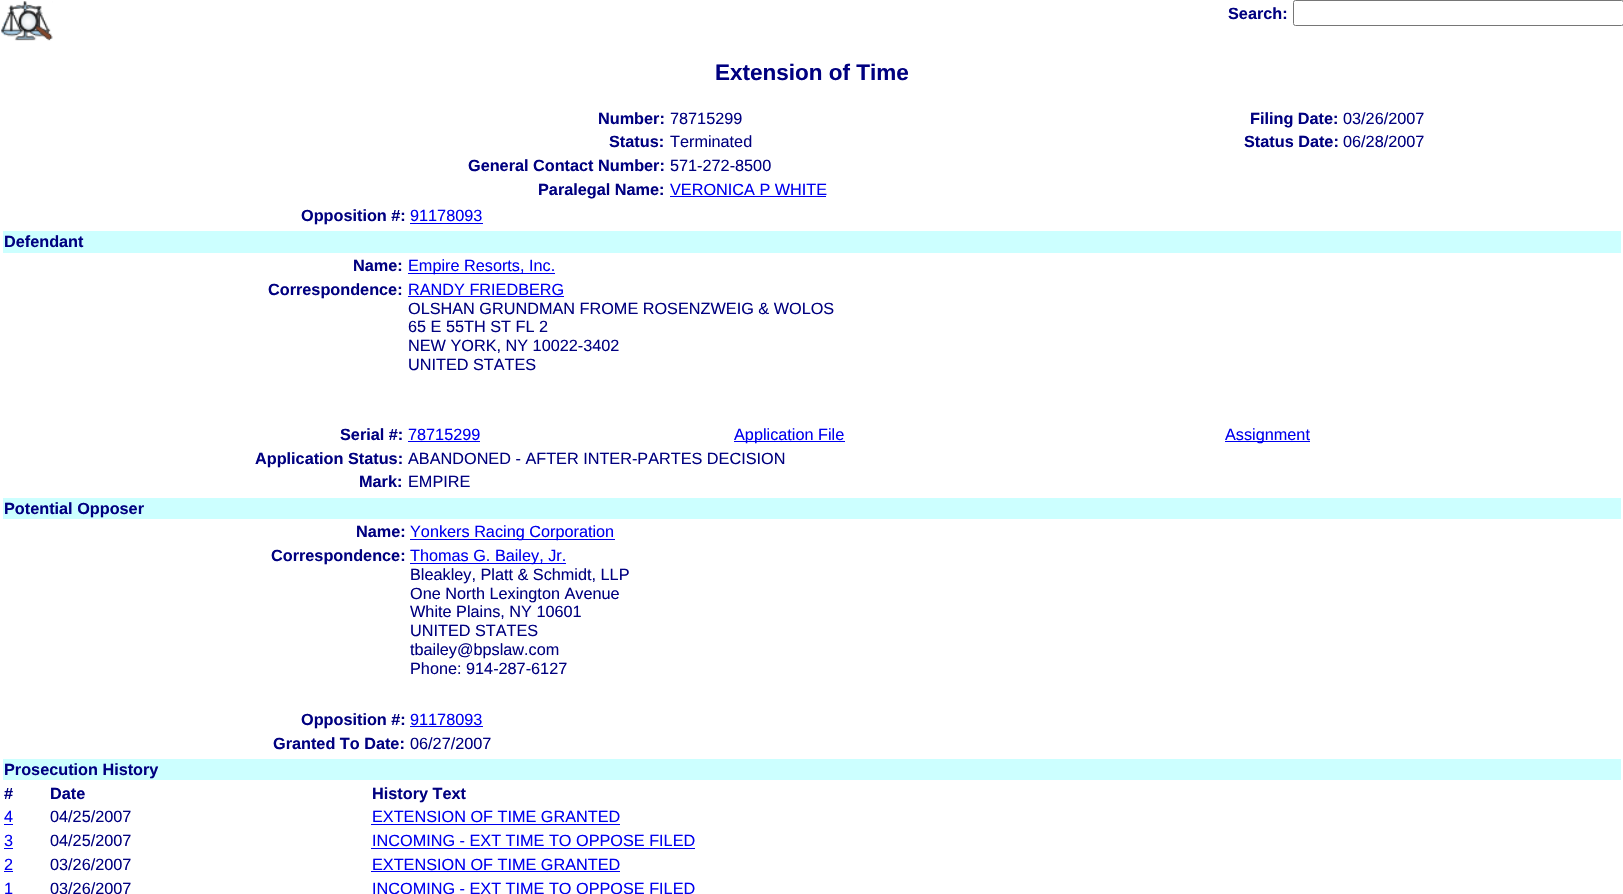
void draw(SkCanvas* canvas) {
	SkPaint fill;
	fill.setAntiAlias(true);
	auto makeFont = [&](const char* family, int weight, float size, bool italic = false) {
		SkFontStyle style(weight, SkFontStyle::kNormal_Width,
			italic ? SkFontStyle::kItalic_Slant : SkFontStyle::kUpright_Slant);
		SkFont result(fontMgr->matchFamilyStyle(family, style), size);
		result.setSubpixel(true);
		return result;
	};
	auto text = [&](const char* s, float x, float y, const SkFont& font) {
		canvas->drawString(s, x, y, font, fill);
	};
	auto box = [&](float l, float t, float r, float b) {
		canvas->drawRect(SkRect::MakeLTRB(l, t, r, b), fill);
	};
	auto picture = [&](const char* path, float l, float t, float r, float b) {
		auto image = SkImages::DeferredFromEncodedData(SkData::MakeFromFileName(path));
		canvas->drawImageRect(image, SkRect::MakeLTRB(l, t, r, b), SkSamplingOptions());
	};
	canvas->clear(0xFFFFFFFF);
	picture("image0.png", 1, 1, 53, 41);
	fill.setStyle(SkPaint::kStroke_Style);
	fill.setStrokeWidth(1);
	fill.setColor(0xFF767676);
	canvas->drawRoundRect(SkRect::MakeLTRB(1293.5f, 0.5f, 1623.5f, 25.5f), 2, 2, fill);
	fill.setStyle(SkPaint::kFill_Style);
	fill.setColor(0xFF0000EE);
	box(670, 196, 826, 197);
	box(410, 223, 483, 224);
	fill.setColor(0xFFCCFFFF);
	box(3, 231, 1621, 253);
	fill.setColor(0xFF0000EE);
	box(408, 273, 555, 274);
	box(408, 296, 564, 297);
	box(408, 441, 480, 442);
	box(734, 441, 845, 442);
	box(1225, 441, 1310, 442);
	fill.setColor(0xFFCCFFFF);
	box(3, 498, 1621, 519);
	fill.setColor(0xFF0000EE);
	box(410, 539, 615, 540);
	box(410, 563, 566, 564);
	box(410, 726, 483, 727);
	fill.setColor(0xFFCCFFFF);
	box(3, 759, 1621, 780);
	fill.setColor(0xFF0000EE);
	box(4, 824, 13, 825);
	box(371, 824, 620, 825);
	box(4, 848, 13, 849);
	box(371, 848, 695, 849);
	box(4, 871, 13, 872);
	box(371, 871, 620, 872);
	auto font1 = makeFont("Liberation Sans", 700, 16.25f);
	fill.setColor(0xFF000080);
	text("Search:", 1228, 19, font1);
	auto font2 = makeFont("Liberation Sans", 700, 22.5f);
	text("Extension of Time", 715, 80, font2);
	text("Number:", 598, 124, font1);
	auto font3 = makeFont("Liberation Sans", 400, 16.25f);
	text("78715299", 670, 124, font3);
	text("Filing Date:", 1250, 124, font1);
	text("03/26/2007", 1343, 124, font3);
	text("Status:", 609, 147, font1);
	text("Terminated", 670, 147, font3);
	text("Status Date:", 1244, 147, font1);
	text("06/28/2007", 1343, 147, font3);
	text("General Contact Number:", 468, 171, font1);
	text("571-272-8500", 670, 171, font3);
	text("Paralegal Name:", 538, 195, font1);
	fill.setColor(0xFF0000EE);
	text("VERONICA P WHITE", 670, 195, font3);
	fill.setColor(0xFF000080);
	text("Opposition #:", 301, 221, font1);
	fill.setColor(0xFF0000EE);
	text("91178093", 410, 221, font3);
	fill.setColor(0xFF000080);
	text("Defendant", 4, 247, font1);
	text("Name:", 353, 271, font1);
	fill.setColor(0xFF0000EE);
	text("Empire Resorts, Inc.", 408, 271, font3);
	fill.setColor(0xFF000080);
	text("Correspondence:", 268, 295, font1);
	fill.setColor(0xFF0000EE);
	text("RANDY FRIEDBERG", 408, 295, font3);
	fill.setColor(0xFF000080);
	text("OLSHAN GRUNDMAN FROME ROSENZWEIG & WOLOS", 408, 314, font3);
	text("65 E 55TH ST FL 2", 408, 332, font3);
	text("NEW YORK, NY 10022-3402", 408, 351, font3);
	text("UNITED STATES", 408, 370, font3);
	text("Serial #:", 340, 440, font1);
	fill.setColor(0xFF0000EE);
	text("78715299", 408, 440, font3);
	text("Application File", 734, 440, font3);
	text("Assignment", 1225, 440, font3);
	fill.setColor(0xFF000080);
	text("Application Status:", 255, 464, font1);
	text("ABANDONED - AFTER INTER-PARTES DECISION", 408, 464, font3);
	text("Mark:", 359, 487, font1);
	text("EMPIRE", 408, 487, font3);
	text("Potential Opposer", 4, 514, font1);
	text("Name:", 356, 537, font1);
	fill.setColor(0xFF0000EE);
	text("Yonkers Racing Corporation", 410, 537, font3);
	fill.setColor(0xFF000080);
	text("Correspondence:", 271, 561, font1);
	fill.setColor(0xFF0000EE);
	text("Thomas G. Bailey, Jr.", 410, 561, font3);
	fill.setColor(0xFF000080);
	text("Bleakley, Platt & Schmidt, LLP", 410, 580, font3);
	text("One North Lexington Avenue", 410, 599, font3);
	text("White Plains, NY 10601", 410, 617, font3);
	text("UNITED STATES", 410, 636, font3);
	text("tbailey@bpslaw.com", 410, 655, font3);
	text("Phone: 914-287-6127", 410, 674, font3);
	text("Opposition #:", 301, 725, font1);
	fill.setColor(0xFF0000EE);
	text("91178093", 410, 725, font3);
	fill.setColor(0xFF000080);
	text("Granted To Date:", 273, 749, font1);
	text("06/27/2007", 410, 749, font3);
	text("Prosecution History", 4, 775, font1);
	text("#", 4, 799, font1);
	text("Date", 50, 799, font1);
	text("History Text", 372, 799, font1);
	fill.setColor(0xFF0000EE);
	text("4", 4, 822, font3);
	fill.setColor(0xFF000080);
	text("04/25/2007", 50, 822, font3);
	fill.setColor(0xFF0000EE);
	text("EXTENSION OF TIME GRANTED", 372, 822, font3);
	text("3", 4, 846, font3);
	fill.setColor(0xFF000080);
	text("04/25/2007", 50, 846, font3);
	fill.setColor(0xFF0000EE);
	text("INCOMING - EXT TIME TO OPPOSE FILED", 372, 846, font3);
	text("2", 4, 870, font3);
	fill.setColor(0xFF000080);
	text("03/26/2007", 50, 870, font3);
	fill.setColor(0xFF0000EE);
	text("EXTENSION OF TIME GRANTED", 372, 870, font3);
	text("1", 4, 894, font3);
	fill.setColor(0xFF000080);
	text("03/26/2007", 50, 894, font3);
	fill.setColor(0xFF0000EE);
	text("INCOMING - EXT TIME TO OPPOSE FILED", 372, 894, font3);
}
